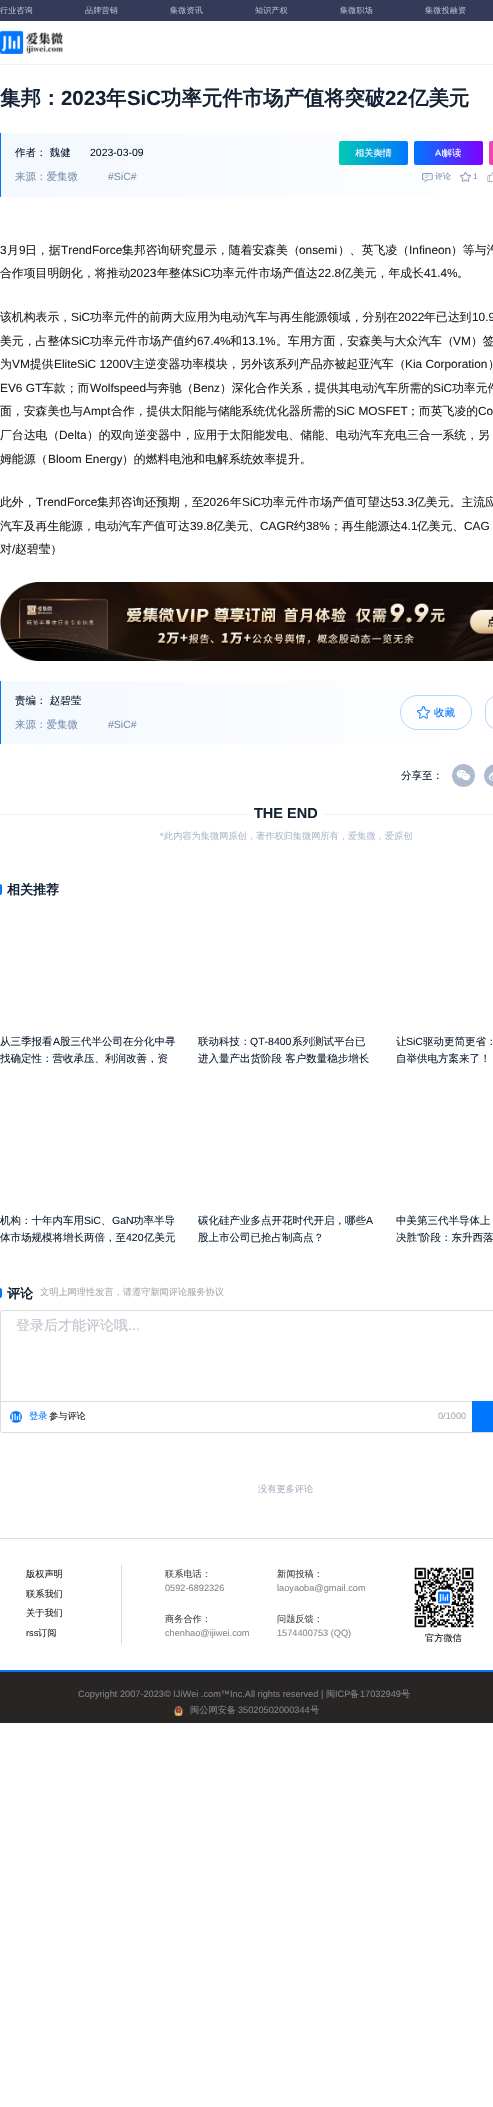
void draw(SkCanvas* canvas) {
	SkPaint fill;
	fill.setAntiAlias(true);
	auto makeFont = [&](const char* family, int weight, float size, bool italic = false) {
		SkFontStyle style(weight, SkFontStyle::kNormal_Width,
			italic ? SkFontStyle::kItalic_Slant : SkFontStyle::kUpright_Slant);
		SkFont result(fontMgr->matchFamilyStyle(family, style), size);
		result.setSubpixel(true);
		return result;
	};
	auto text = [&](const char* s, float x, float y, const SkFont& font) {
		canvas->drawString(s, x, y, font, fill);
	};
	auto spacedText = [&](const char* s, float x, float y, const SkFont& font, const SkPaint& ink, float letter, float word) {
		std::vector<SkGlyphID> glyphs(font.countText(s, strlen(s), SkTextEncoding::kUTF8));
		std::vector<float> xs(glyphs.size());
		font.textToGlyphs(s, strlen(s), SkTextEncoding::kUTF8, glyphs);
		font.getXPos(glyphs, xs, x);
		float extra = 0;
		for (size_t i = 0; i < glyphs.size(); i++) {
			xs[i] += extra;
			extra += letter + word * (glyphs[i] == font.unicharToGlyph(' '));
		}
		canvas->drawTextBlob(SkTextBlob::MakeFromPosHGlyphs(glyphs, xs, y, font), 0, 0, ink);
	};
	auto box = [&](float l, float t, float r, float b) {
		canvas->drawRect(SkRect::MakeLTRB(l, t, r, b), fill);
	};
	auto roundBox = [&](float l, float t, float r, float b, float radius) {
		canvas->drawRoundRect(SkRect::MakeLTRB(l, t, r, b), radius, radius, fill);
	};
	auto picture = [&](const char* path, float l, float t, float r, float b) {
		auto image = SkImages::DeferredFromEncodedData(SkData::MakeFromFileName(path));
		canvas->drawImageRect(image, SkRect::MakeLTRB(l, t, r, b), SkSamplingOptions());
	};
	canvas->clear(0xFFFFFFFF);
	fill.setColor(0xFF343B59);
	box(0, 0, 493, 21);
	fill.setColor(0xFFF0F0F0);
	box(0, 64, 493, 65);
	picture("image0.png", 0, 30, 63, 54);
	{
		const SkColor colors[] = {0xFFF4F9FF, 0xFFFFFFFF};
		const float stops[] = {0, 1};
		const SkPoint ends[] = {{1, 165}, {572, 165}};
		fill.setShader(SkGradientShader::MakeLinear(ends, colors, stops, 2, SkTileMode::kClamp));
		fill.setAlpha(255);
	}
	box(1, 133, 442, 197);
	fill.setShader(nullptr);
	fill.setColor(0xFF0077FF);
	box(0, 133, 1, 197);
	{
		const SkColor colors[] = {0xFF0077FF, 0xFF00CBB3};
		const float stops[] = {0, 1};
		const SkPoint ends[] = {{408, 153}, {339, 153}};
		fill.setShader(SkGradientShader::MakeLinear(ends, colors, stops, 2, SkTileMode::kClamp));
		fill.setAlpha(255);
	}
	roundBox(339, 141, 408, 165, 2);
	{
		const SkColor colors[] = {0xFF8000FF, 0xFF0077FF};
		const float stops[] = {0, 1};
		const SkPoint ends[] = {{483, 153}, {414, 153}};
		fill.setShader(SkGradientShader::MakeLinear(ends, colors, stops, 2, SkTileMode::kClamp));
		fill.setAlpha(255);
	}
	roundBox(414, 141, 483, 165, 2);
	{
		const SkColor colors[] = {0xFF7C03FF, 0xFFF645AA};
		const float stops[] = {0, 1};
		const SkPoint ends[] = {{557, 153}, {489, 153}};
		fill.setShader(SkGradientShader::MakeLinear(ends, colors, stops, 2, SkTileMode::kClamp));
		fill.setAlpha(255);
	}
	roundBox(489, 141, 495, 165, 2);
	picture("image1.png", 422, 173, 433, 182);
	picture("image2.png", 460, 172, 471, 182);
	picture("image3.png", 487, 172, 493, 182);
	picture("image4.png", 0, 582, 493, 661);
	{
		const SkColor colors[] = {0xFFF4F9FF, 0xFFFFFFFF};
		const float stops[] = {0, 1};
		const SkPoint ends[] = {{1, 713}, {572, 713}};
		fill.setShader(SkGradientShader::MakeLinear(ends, colors, stops, 2, SkTileMode::kClamp));
		fill.setAlpha(255);
	}
	box(1, 681, 442, 744);
	fill.setShader(nullptr);
	fill.setColor(0xFF0077FF);
	box(0, 681, 1, 744);
	fill.setStyle(SkPaint::kStroke_Style);
	fill.setStrokeWidth(1);
	fill.setColor(0xFFBAD8F9);
	canvas->drawRoundRect(SkRect::MakeLTRB(400.5f, 695.5f, 471.5f, 729.5f), 16.5f, 16.5f, fill);
	picture("image5.png", 417, 706, 430, 719);
	canvas->drawRoundRect(SkRect::MakeLTRB(485.5f, 695.5f, 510.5f, 729.5f), 16.5f, 16.5f, fill);
	picture("image6.png", 452, 764, 475, 787);
	picture("image7.png", 484, 764, 493, 787);
	fill.setStyle(SkPaint::kFill_Style);
	fill.setColor(0xFFF0F0F0);
	box(0, 814, 493, 815);
	fill.setColor(0xFFFFFFFF);
	box(248, 814, 324, 815);
	fill.setColor(0xFF0077FF);
	canvas->drawPath(SkPathBuilder().moveTo(0, 884).cubicTo(1, 884, 2, 885, 2, 886).lineTo(2, 893).cubicTo(2, 894, 1, 895, 0, 895).close().detach(), fill);
	canvas->drawPath(SkPathBuilder().moveTo(0, 1288).cubicTo(1, 1288, 2, 1289, 2, 1290).lineTo(2, 1296).cubicTo(2, 1297, 1, 1298, 0, 1298).close().detach(), fill);
	fill.setStyle(SkPaint::kStroke_Style);
	fill.setColor(0xFFDDDDDD);
	canvas->drawRoundRect(SkRect::MakeLTRB(0.5f, 1310.5f, 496.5f, 1432.5f), 2.5f, 2.5f, fill);
	fill.setStyle(SkPaint::kFill_Style);
	box(1, 1401, 472, 1402);
	picture("image8.png", 10, 1411, 22, 1423);
	fill.setColor(0xFF0077FF);
	box(472, 1401, 493, 1432);
	fill.setColor(0xFFDDDDDD);
	box(0, 1538, 493, 1539);
	box(121, 1565, 122, 1644);
	picture("image9.png", 414, 1567, 474, 1628);
	fill.setColor(0xFF282525);
	box(0, 1672, 493, 1723);
	fill.setColor(0xFF0077FF);
	box(0, 1670, 493, 1672);
	picture("image10.png", 174, 1706, 183, 1716);
	auto font1 = makeFont("WenQuanYi Zen Hei", 500, 8);
	fill.setColor(0xFFAEBACE);
	spacedText("行业咨询", 0, 13, font1, fill, 0.25f, 0);
	spacedText("品牌营销", 85, 13, font1, fill, 0.25f, 0);
	spacedText("集微资讯", 170, 13, font1, fill, 0.25f, 0);
	spacedText("知识产权", 255, 13, font1, fill, 0.25f, 0);
	spacedText("集微职场", 340, 13, font1, fill, 0.25f, 0);
	spacedText("集微投融资", 425, 13, font1, fill, 0.25f, 0);
	auto font2 = makeFont("WenQuanYi Zen Hei", 700, 20.4f);
	fill.setColor(0xFF132234);
	text("集邦：", 0, 105, font2);
	auto font3 = makeFont("Liberation Sans", 700, 20.4f);
	text("2023", 61, 105, font3);
	text("年", 106, 105, font2);
	text("SiC", 127, 105, font3);
	text("功率元件市场产值将突破", 161, 105, font2);
	text("22", 385, 105, font3);
	text("亿美元", 408, 105, font2);
	auto font4 = makeFont("WenQuanYi Zen Hei", 500, 10.5f);
	text("作者： 魏健", 15, 156, font4);
	auto font5 = makeFont("Liberation Sans", 400, 10.5f);
	text("2023-03-09", 90, 156, font5);
	auto font6 = makeFont("WenQuanYi Zen Hei", 500, 9.2f);
	fill.setColor(0xFFFFFFFF);
	text("相关舆情", 355, 156, font6);
	auto font7 = makeFont("Liberation Sans", 400, 9.2f);
	text("AI", 435, 156, font7);
	text("解读", 443, 156, font6);
	fill.setColor(0xFF7B8FAF);
	text("来源：爱集微", 15, 180, font4);
	text("#SiC#", 108, 180, font5);
	text("评论", 435, 179, font1);
	auto font8 = makeFont("Liberation Sans", 400, 8);
	text("1", 473, 179, font8);
	auto font9 = makeFont("Liberation Sans", 400, 11.85f);
	fill.setColor(0xFF222222);
	text("3", 0, 254, font9);
	auto font10 = makeFont("WenQuanYi Zen Hei", 500, 11.85f);
	text("月", 7, 254, font10);
	text("9", 19, 254, font9);
	text("日，据", 25, 254, font10);
	text("TrendForce", 61, 254, font9);
	text("集邦咨询研究显示，随着安森美（", 122, 254, font10);
	text("onsemi", 299, 254, font9);
	text("）、英飞凌（", 338, 254, font10);
	text("Infineon", 409, 254, font9);
	text("）等与汽", 451, 254, font10);
	text("合作项目明朗化，将推动", 0, 277, font10);
	text("2023", 130, 277, font9);
	text("年整体", 157, 277, font10);
	text("SiC", 192, 277, font9);
	text("功率元件市场产值达", 211, 277, font10);
	text("22.8", 318, 277, font9);
	text("亿美元，年成长", 341, 277, font10);
	text("41.4%", 424, 277, font9);
	text("。", 457, 277, font10);
	text("该机构表示，", 0, 321, font10);
	text("SiC", 71, 321, font9);
	text("功率元件的前两大应用为电动汽车与再生能源领域，分别在", 90, 321, font10);
	text("2022", 398, 321, font9);
	text("年已达到", 424, 321, font10);
	text("10.9", 472, 321, font9);
	text("美元，占整体", 0, 345, font10);
	text("SiC", 71, 345, font9);
	text("功率元件市场产值约", 90, 345, font10);
	text("67.4%", 197, 345, font9);
	text("和", 230, 345, font10);
	text("13.1%", 242, 345, font9);
	text("。车用方面，安森美与大众汽车（", 276, 345, font10);
	text("VM", 453, 345, font9);
	text("）签", 471, 345, font10);
	text("为", 0, 368, font10);
	text("VM", 12, 368, font9);
	text("提供", 30, 368, font10);
	text("EliteSiC 1200V", 54, 368, font9);
	text("主逆变器功率模块，另外该系列产品亦被起亚汽车（", 133, 368, font10);
	text("Kia Corporation", 405, 368, font9);
	text("）", 488, 368, font10);
	text("EV6 GT", 0, 392, font9);
	text("车款；而", 42, 392, font10);
	text("Wolfspeed", 90, 392, font9);
	text("与奔驰（", 146, 392, font10);
	text("Benz", 193, 392, font9);
	text("）深化合作关系，提供其电动汽车所需的", 220, 392, font10);
	text("SiC", 433, 392, font9);
	text("功率元件", 452, 392, font10);
	text("面，安森美也与", 0, 415, font10);
	text("Ampt", 83, 415, font9);
	text("合作，提供太阳能与储能系统优化器所需的", 111, 415, font10);
	text("SiC MOSFET", 336, 415, font9);
	text("；而英飞凌的", 407, 415, font10);
	text("Co", 478, 415, font9);
	text("厂台达电（", 0, 439, font10);
	text("Delta", 59, 439, font9);
	text("）的双向逆变器中，应用于太阳能发电、储能、电动汽车充电三合一系统，另", 87, 439, font10);
	text("姆能源（", 0, 463, font10);
	text("Bloom Energy", 48, 463, font9);
	text("）的燃料电池和电解系统效率提升。", 122, 463, font10);
	text("此外，", 0, 506, font10);
	text("TrendForce", 36, 506, font9);
	text("集邦咨询还预期，至", 97, 506, font10);
	text("2026", 203, 506, font9);
	text("年", 230, 506, font10);
	text("SiC", 242, 506, font9);
	text("功率元件市场产值可望达", 261, 506, font10);
	text("53.3", 391, 506, font9);
	text("亿美元。主流应", 414, 506, font10);
	text("汽车及再生能源，电动汽车产值可达", 0, 530, font10);
	text("39.8", 190, 530, font9);
	text("亿美元、", 213, 530, font10);
	text("CAGR", 260, 530, font9);
	text("约", 294, 530, font10);
	text("38%", 306, 530, font9);
	text("；再生能源达", 330, 530, font10);
	text("4.1", 401, 530, font9);
	text("亿美元、", 417, 530, font10);
	text("CAG", 464, 530, font9);
	text("对", 0, 553, font10);
	text("/", 12, 553, font9);
	text("赵碧莹）", 15, 553, font10);
	fill.setColor(0xFF132234);
	text("责编： 赵碧莹", 15, 704, font4);
	fill.setColor(0xFF7B8FAF);
	text("来源：爱集微", 15, 728, font4);
	text("#SiC#", 108, 728, font5);
	fill.setColor(0xFF0077FF);
	text("收藏", 434, 716, font4);
	fill.setColor(0xFF132234);
	text("分享至：", 401, 779, font4);
	auto font11 = makeFont("Liberation Sans", 700, 14.5f);
	text("THE END", 254, 818, font11);
	fill.setColor(0xFFAEBACE);
	text("*", 160, 839, font7);
	text("此内容为集微网原创，著作权归集微网所有，爱集微，爱原创", 164, 839, font6);
	auto font12 = makeFont("WenQuanYi Zen Hei", 700, 13);
	fill.setColor(0xFF132234);
	text("相关推荐", 7, 894, font12);
	text("从三季报看", 0, 1045, font4);
	text("A", 53, 1045, font5);
	text("股三代半公司在分化中寻", 60, 1045, font4);
	text("找确定性：营收承压、利润改善，资", 0, 1062, font4);
	text("联动科技：", 198, 1045, font4);
	text("QT-8400", 250, 1045, font5);
	text("系列测试平台已", 292, 1045, font4);
	text("进入量产出货阶段 客户数量稳步增长", 198, 1062, font4);
	text("让", 396, 1045, font4);
	text("SiC", 406, 1045, font5);
	text("驱动更简更省：", 423, 1045, font4);
	text("自举供电方案来了！", 396, 1062, font4);
	text("机构：十年内车用", 0, 1224, font4);
	text("SiC", 84, 1224, font5);
	text("、", 101, 1224, font4);
	text("GaN", 112, 1224, font5);
	text("功率半导", 133, 1224, font4);
	text("体市场规模将增长两倍，至", 0, 1241, font4);
	text("420", 126, 1241, font5);
	text("亿美元", 144, 1241, font4);
	text("碳化硅产业多点开花时代开启，哪些", 198, 1224, font4);
	text("A", 366, 1224, font5);
	text("股上市公司已抢占制高点？", 198, 1241, font4);
	text("中美第三代半导体上", 396, 1224, font4);
	text("决胜", 396, 1241, font4);
	text("”", 417, 1241, font5);
	text("阶段：东升西落", 420, 1241, font4);
	text("评论", 7, 1298, font12);
	fill.setColor(0xFFAAAAAA);
	text("文明上网理性发言，请遵守新闻评论服务协议", 40, 1295, font6);
	auto font13 = makeFont("WenQuanYi Zen Hei", 500, 14);
	fill.setColor(0xFFC0C4CC);
	text("登录后才能评论哦", 16, 1330, font13);
	auto font14 = makeFont("Liberation Sans", 400, 14);
	text("...", 128, 1330, font14);
	fill.setColor(0xFF0077FF);
	text("登录", 29, 1419, font6);
	fill.setColor(0xFF222222);
	text("参与评论", 49, 1419, font6);
	fill.setColor(0xFFAAAAAA);
	text("0/1000", 438, 1419, font7);
	fill.setColor(0xFFA7B1C2);
	text("没有更多评论", 258, 1492, font6);
	fill.setColor(0xFF222222);
	text("版权声明", 26, 1577, font6);
	text("联系我们", 26, 1597, font6);
	text("关于我们", 26, 1616, font6);
	text("rss", 26, 1636, font7);
	text("订阅", 38, 1636, font6);
	fill.setColor(0xFF444444);
	text("联系电话：", 165, 1577, font6);
	fill.setColor(0xFF888888);
	text("0592-6892326", 165, 1591, font7);
	fill.setColor(0xFF444444);
	text("新闻投稿：", 277, 1577, font6);
	fill.setColor(0xFF888888);
	text("laoyaoba@gmail.com", 277, 1591, font7);
	fill.setColor(0xFF444444);
	text("商务合作：", 165, 1622, font6);
	fill.setColor(0xFF888888);
	text("chenhao@ijiwei.com", 165, 1636, font7);
	fill.setColor(0xFF444444);
	text("问题反馈：", 277, 1622, font6);
	fill.setColor(0xFF888888);
	text("1574400753 (QQ)", 277, 1636, font7);
	fill.setColor(0xFF222222);
	text("官方微信", 425, 1641, font6);
	fill.setColor(0xFF828282);
	text("Copyright 2007-2023© IJiWei .com™Inc.All rights reserved |", 78, 1697, font7);
	text("闽", 326, 1697, font6);
	text("ICP", 335, 1697, font7);
	text("备", 350, 1697, font6);
	text("17032949", 360, 1697, font7);
	text("号", 401, 1697, font6);
	text("闽公网安备", 190, 1713, font6);
	text("35020502000344", 238, 1713, font7);
	text("号", 310, 1713, font6);
}
